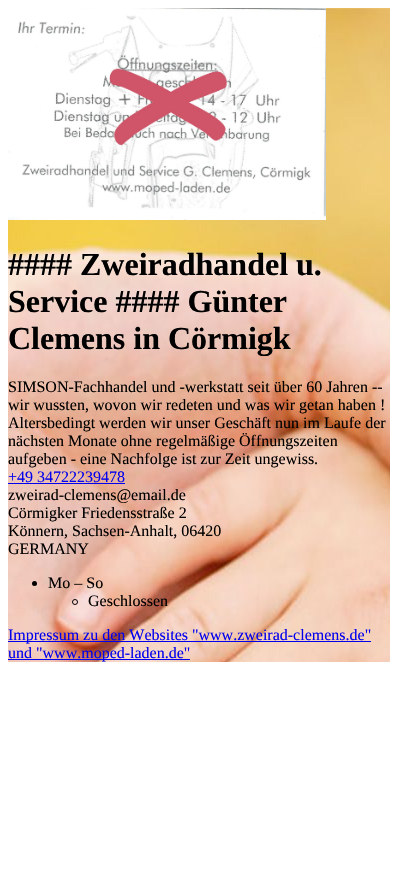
void draw(SkCanvas* canvas) {
	SkPaint fill;
	fill.setAntiAlias(true);
	auto makeFont = [&](const char* family, int weight, float size, bool italic = false) {
		SkFontStyle style(weight, SkFontStyle::kNormal_Width,
			italic ? SkFontStyle::kItalic_Slant : SkFontStyle::kUpright_Slant);
		SkFont result(fontMgr->matchFamilyStyle(family, style), size);
		result.setSubpixel(true);
		return result;
	};
	auto text = [&](const char* s, float x, float y, const SkFont& font) {
		canvas->drawString(s, x, y, font, fill);
	};
	auto box = [&](float l, float t, float r, float b) {
		canvas->drawRect(SkRect::MakeLTRB(l, t, r, b), fill);
	};
	auto picture = [&](const char* path, float l, float t, float r, float b) {
		auto image = SkImages::DeferredFromEncodedData(SkData::MakeFromFileName(path));
		canvas->drawImageRect(image, SkRect::MakeLTRB(l, t, r, b), SkSamplingOptions());
	};
	canvas->clear(0xFFFFFFFF);
	picture("image0.png", 8, 8, 390, 662);
	picture("image1.png", 8, 8, 326, 220);
	fill.setColor(0xFF0000EE);
	box(8, 483, 125, 484);
	fill.setColor(0xFF000000);
	canvas->drawCircle(34.5f, 583.5f, 2.5f, fill);
	fill.setStyle(SkPaint::kStroke_Style);
	fill.setStrokeWidth(1);
	canvas->drawCircle(75, 602, 2.5f, fill);
	fill.setStyle(SkPaint::kFill_Style);
	fill.setColor(0xFF0000EE);
	box(8, 641, 371, 642);
	box(8, 659, 190, 660);
	auto font1 = makeFont("Liberation Serif", 700, 32);
	fill.setColor(0xFF000000);
	text("#### Zweiradhandel u.", 8, 275, font1);
	text("Service #### Günter", 8, 312, font1);
	text("Clemens in Cörmigk", 8, 349, font1);
	auto font2 = makeFont("Liberation Serif", 400, 16);
	text("SIMSON-Fachhandel und -werkstatt seit über 60 Jahren --", 8, 392, font2);
	text("wir wussten, wovon wir redeten und was wir getan haben !", 8, 410, font2);
	text("Altersbedingt werden wir unser Geschäft nun im Laufe der", 8, 428, font2);
	text("nächsten Monate ohne regelmäßige Öffnungszeiten", 8, 446, font2);
	text("aufgeben - eine Nachfolge ist zur Zeit ungewiss.", 8, 464, font2);
	fill.setColor(0xFF0000EE);
	text("+49 34722239478", 8, 482, font2);
	fill.setColor(0xFF000000);
	text("zweirad-clemens@email.de", 8, 500, font2);
	text("Cörmigker Friedensstraße 2", 8, 518, font2);
	text("Könnern, Sachsen-Anhalt, 06420", 8, 536, font2);
	text("GERMANY", 8, 554, font2);
	text("Mo – So", 48, 588, font2);
	text("Geschlossen", 88, 606, font2);
	fill.setColor(0xFF0000EE);
	text("Impressum zu den Websites \"www.zweirad-clemens.de\"", 8, 640, font2);
	text("und \"www.moped-laden.de\"", 8, 658, font2);
}
